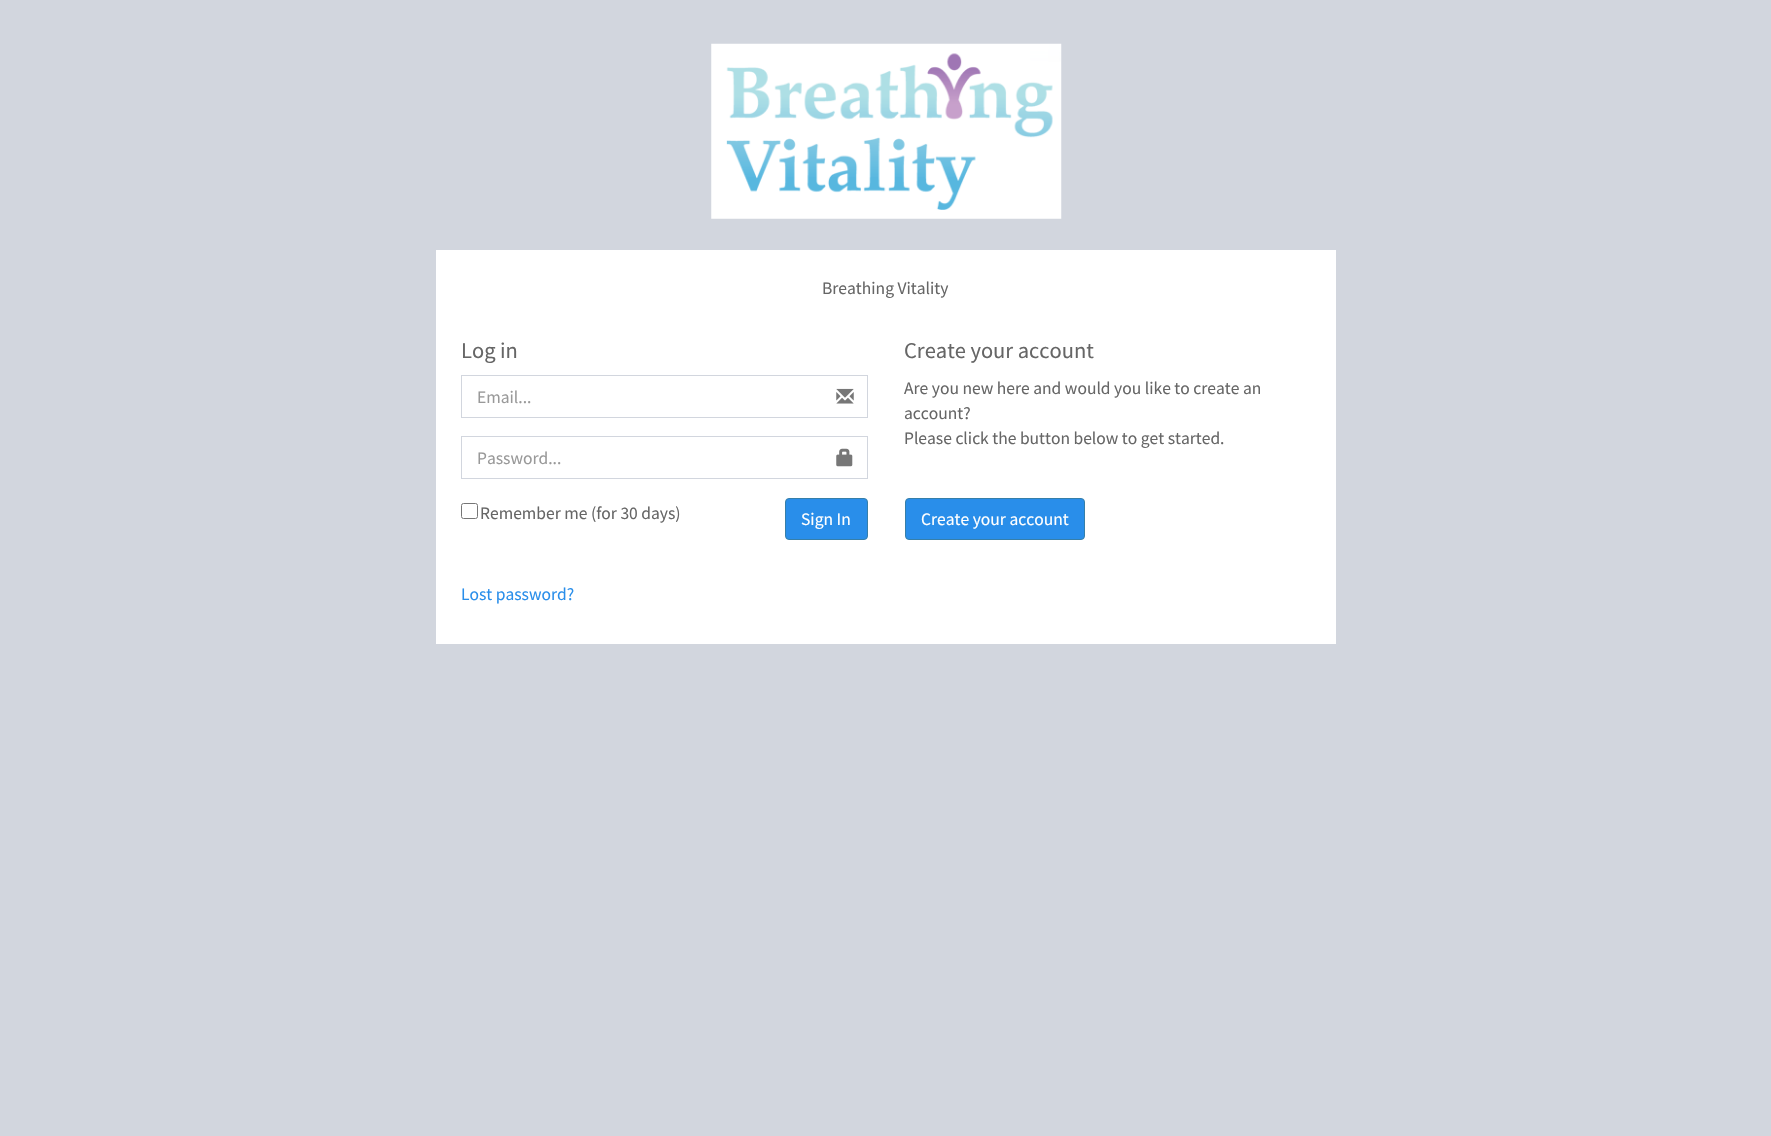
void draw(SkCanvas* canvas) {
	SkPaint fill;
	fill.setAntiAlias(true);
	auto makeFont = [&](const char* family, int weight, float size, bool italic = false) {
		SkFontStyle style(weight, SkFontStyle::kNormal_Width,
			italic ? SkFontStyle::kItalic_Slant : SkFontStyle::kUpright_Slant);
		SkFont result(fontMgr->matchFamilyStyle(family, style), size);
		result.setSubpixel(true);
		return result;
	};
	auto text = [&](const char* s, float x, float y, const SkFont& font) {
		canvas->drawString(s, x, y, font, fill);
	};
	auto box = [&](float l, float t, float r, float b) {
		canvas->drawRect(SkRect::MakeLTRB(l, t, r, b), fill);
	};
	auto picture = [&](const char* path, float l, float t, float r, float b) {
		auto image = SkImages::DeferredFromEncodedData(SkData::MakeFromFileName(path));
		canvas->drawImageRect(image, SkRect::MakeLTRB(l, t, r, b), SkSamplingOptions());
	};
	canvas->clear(0xFFD2D6DE);
	picture("image0.png", 711, 43, 1062, 219);
	fill.setColor(0xFFFFFFFF);
	box(436, 250, 1336, 644);
	fill.setStyle(SkPaint::kStroke_Style);
	fill.setStrokeWidth(1);
	fill.setColor(0xFFD2D6DE);
	canvas->drawRect(SkRect::MakeLTRB(461.5f, 375.5f, 867.5f, 417.5f), fill);
	picture("image1.png", 836, 388, 854, 404);
	canvas->drawRect(SkRect::MakeLTRB(461.5f, 436.5f, 867.5f, 478.5f), fill);
	picture("image2.png", 836, 448, 853, 467);
	fill.setColor(0xFF767676);
	canvas->drawRoundRect(SkRect::MakeLTRB(461.5f, 503.5f, 477.5f, 518.5f), 2, 2, fill);
	fill.setStyle(SkPaint::kFill_Style);
	fill.setColor(0xFF298EEA);
	canvas->drawRoundRect(SkRect::MakeLTRB(785.5f, 498.5f, 867.5f, 539.5f), 3.5f, 3.5f, fill);
	fill.setStyle(SkPaint::kStroke_Style);
	fill.setColor(0xFF367FA9);
	canvas->drawRoundRect(SkRect::MakeLTRB(785.5f, 498.5f, 867.5f, 539.5f), 3.5f, 3.5f, fill);
	fill.setStyle(SkPaint::kFill_Style);
	fill.setColor(0xFF298EEA);
	canvas->drawRoundRect(SkRect::MakeLTRB(905.5f, 498.5f, 1084.5f, 539.5f), 3.5f, 3.5f, fill);
	fill.setStyle(SkPaint::kStroke_Style);
	fill.setColor(0xFF367FA9);
	canvas->drawRoundRect(SkRect::MakeLTRB(905.5f, 498.5f, 1084.5f, 539.5f), 3.5f, 3.5f, fill);
	auto font1 = makeFont("Source Sans Pro", 400, 17.5f);
	fill.setStyle(SkPaint::kFill_Style);
	fill.setColor(0xFF666666);
	text("Breathing Vitality", 822, 294, font1);
	auto font2 = makeFont("Source Sans Pro", 400, 22.5f);
	text("Log in", 461, 358, font2);
	fill.setColor(0xFF999999);
	text("Email...", 477, 403, font1);
	text("Password...", 477, 464, font1);
	fill.setColor(0xFF666666);
	text("Remember me (for 30 days)", 480, 519, font1);
	fill.setColor(0xFFFFFFFF);
	text("Sign In", 801, 525, font1);
	fill.setColor(0xFF298EEA);
	text("Lost password?", 461, 600, font1);
	fill.setColor(0xFF666666);
	text("Create your account", 904, 358, font2);
	text("Are you new here and would you like to create an", 904, 394, font1);
	text("account?", 904, 419, font1);
	text("Please click the button below to get started.", 904, 444, font1);
	fill.setColor(0xFFFFFFFF);
	text("Create your account", 921, 525, font1);
}
